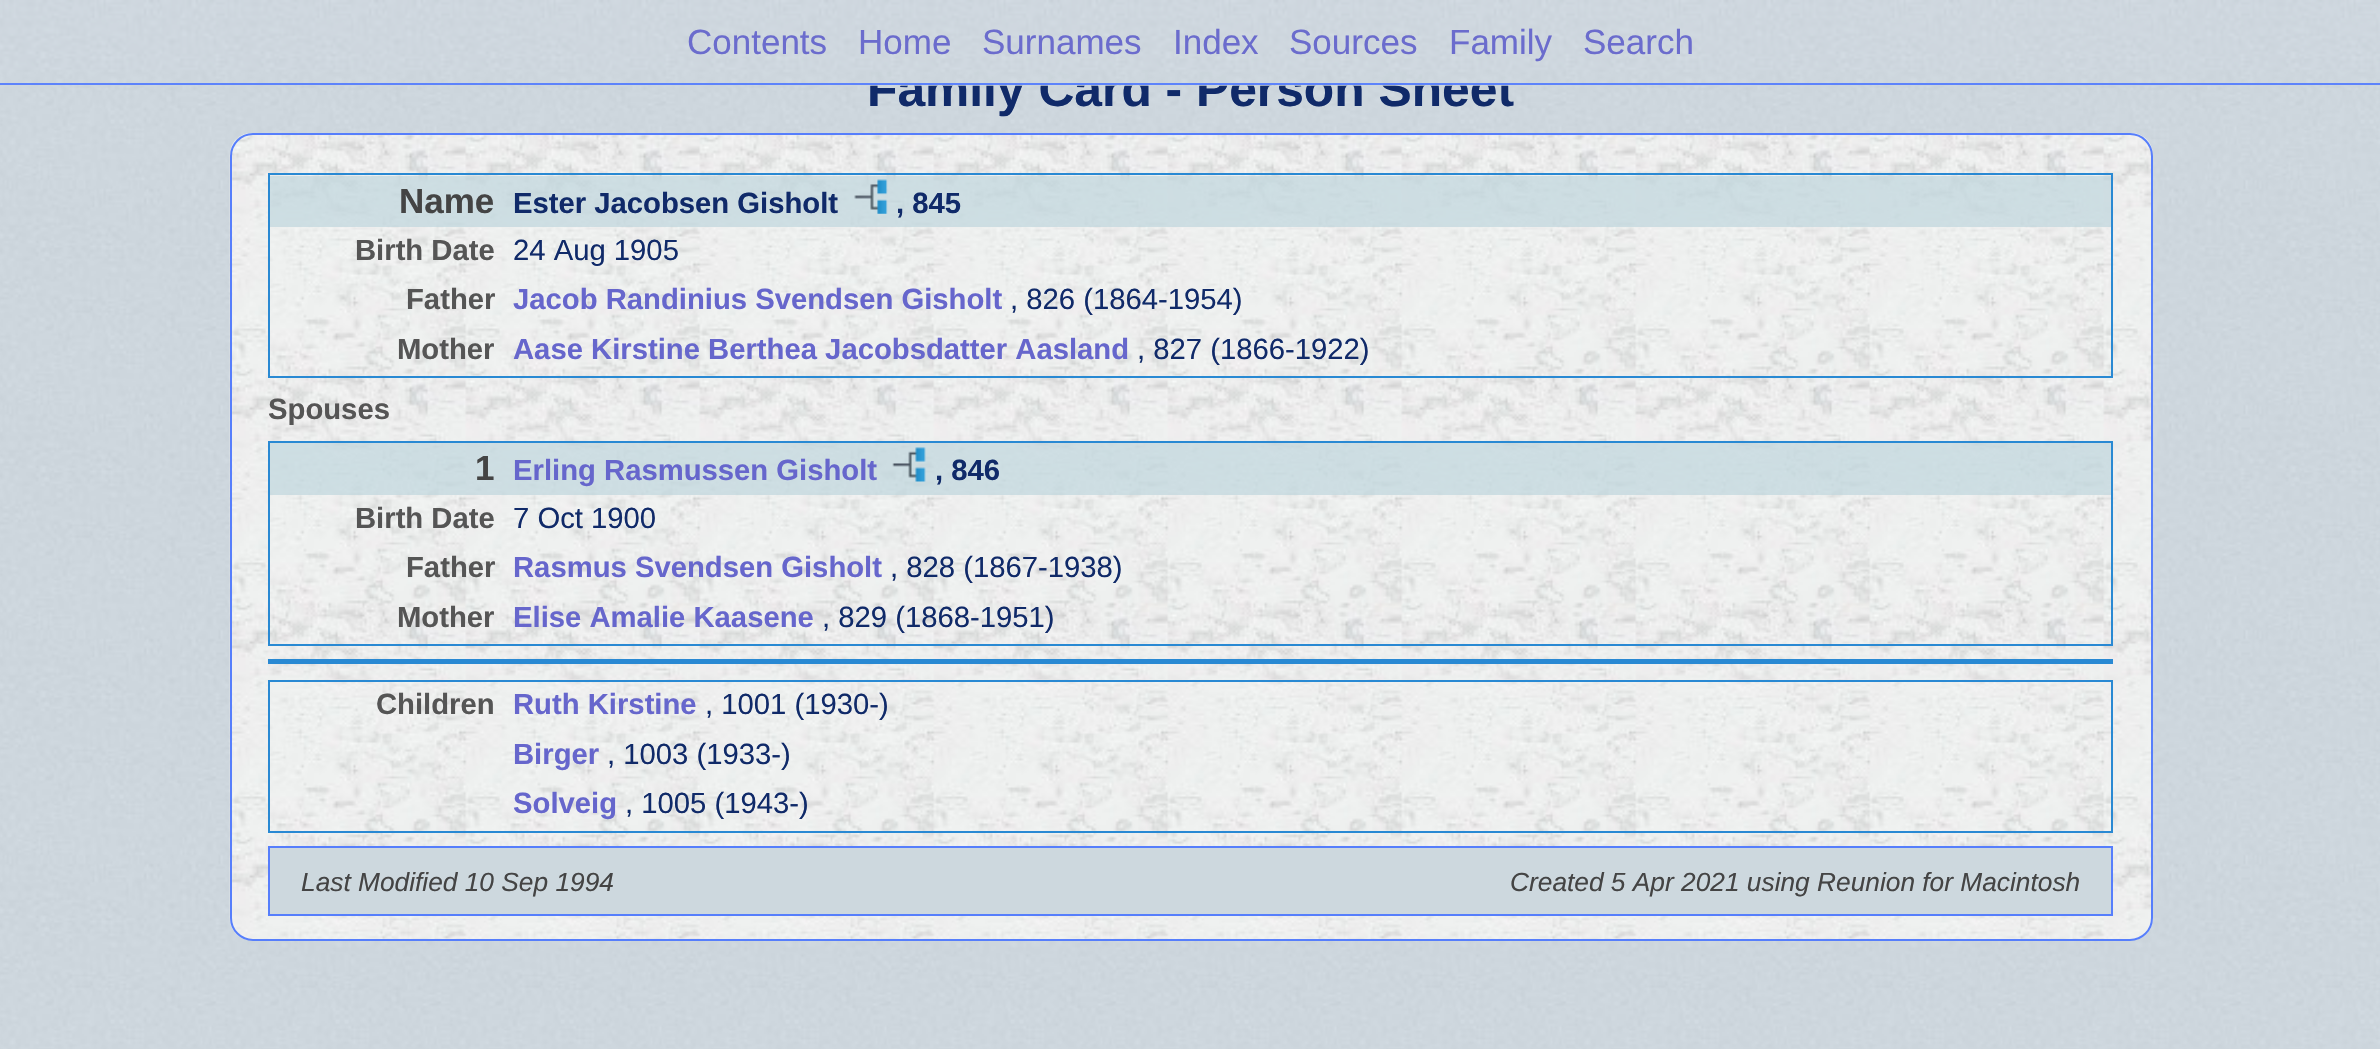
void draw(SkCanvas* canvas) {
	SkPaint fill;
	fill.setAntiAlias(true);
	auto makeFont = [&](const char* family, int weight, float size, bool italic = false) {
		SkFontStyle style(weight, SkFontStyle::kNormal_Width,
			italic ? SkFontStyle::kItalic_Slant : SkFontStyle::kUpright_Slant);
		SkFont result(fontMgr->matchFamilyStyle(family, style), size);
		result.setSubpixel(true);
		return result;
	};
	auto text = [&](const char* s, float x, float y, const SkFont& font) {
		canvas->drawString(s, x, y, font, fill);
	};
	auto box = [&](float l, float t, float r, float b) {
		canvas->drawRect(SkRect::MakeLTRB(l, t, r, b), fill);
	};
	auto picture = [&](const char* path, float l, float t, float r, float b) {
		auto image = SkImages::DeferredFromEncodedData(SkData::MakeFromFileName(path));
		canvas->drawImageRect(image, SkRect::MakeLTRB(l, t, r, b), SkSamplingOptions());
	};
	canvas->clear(0xFFFFFFFF);
	picture("image0.png", 0, 0, 2380, 1049);
	picture("image3.png", 229, 133, 2153, 941);
	fill.setStyle(SkPaint::kStroke_Style);
	fill.setStrokeWidth(2);
	fill.setColor(0xFF567EFC);
	canvas->drawRoundRect(SkRect::MakeLTRB(231, 134, 2152, 940), 22, 22, fill);
	fill.setColor(0xFF2989D3);
	canvas->drawRect(SkRect::MakeLTRB(269, 174, 2112, 377), fill);
	fill.setStyle(SkPaint::kFill_Style);
	fill.setColor(0xB3BFD6DD);
	box(270, 176, 2111, 227);
	picture("image4.png", 854, 179, 888, 214);
	fill.setStyle(SkPaint::kStroke_Style);
	fill.setColor(0xFF2989D3);
	canvas->drawRect(SkRect::MakeLTRB(269, 442, 2112, 645), fill);
	fill.setStyle(SkPaint::kFill_Style);
	fill.setColor(0xB3BFD6DD);
	box(270, 443, 2111, 495);
	picture("image5.png", 892, 447, 926, 482);
	fill.setColor(0xFF2989D3);
	box(268, 659, 2113, 664);
	fill.setStyle(SkPaint::kStroke_Style);
	canvas->drawRect(SkRect::MakeLTRB(269, 681, 2112, 832), fill);
	fill.setStyle(SkPaint::kFill_Style);
	fill.setColor(0xFFCDD8DE);
	canvas->drawRect(SkRect::MakeLTRB(269, 847, 2112, 915), fill);
	fill.setStyle(SkPaint::kStroke_Style);
	fill.setColor(0xFF567EFC);
	canvas->drawRect(SkRect::MakeLTRB(269, 847, 2112, 915), fill);
	auto font1 = makeFont("Liberation Sans", 700, 49.75f);
	fill.setStyle(SkPaint::kFill_Style);
	fill.setColor(0xFF102A69);
	text("Family Card - Person Sheet", 867, 106, font1);
	picture("image1.png", 0, 0, 2380, 86);
	auto font2 = makeFont("Liberation Sans", 400, 35);
	fill.setColor(0xFF6B6CCD);
	text("Search", 1583, 54, font2);
	text("Family", 1449, 54, font2);
	text("Sources", 1289, 54, font2);
	text("Index", 1173, 54, font2);
	text("Surnames", 982, 54, font2);
	text("Home", 858, 54, font2);
	text("Contents", 687, 54, font2);
	picture("image2.png", 0, 70, 2380, 86);
	fill.setColor(0xF2567EFC);
	box(0, 83, 2380, 85);
	auto font3 = makeFont("Liberation Sans", 700, 35);
	fill.setColor(0xFF444444);
	text("Name", 399, 213, font3);
	auto font4 = makeFont("Liberation Sans", 700, 29.25f);
	fill.setColor(0xFF102A69);
	text("Ester Jacobsen Gisholt", 513, 213, font4);
	text(", 845", 896, 213, font4);
	fill.setColor(0xFF555555);
	text("Birth Date", 355, 260, font4);
	auto font5 = makeFont("Liberation Sans", 400, 29.25f);
	fill.setColor(0xFF102A69);
	text("24 Aug 1905", 513, 260, font5);
	fill.setColor(0xFF555555);
	text("Father", 406, 309, font4);
	fill.setColor(0xFF6666CC);
	text("Jacob Randinius Svendsen Gisholt", 513, 309, font4);
	fill.setColor(0xFF102A69);
	text(", 826 (1864-1954)", 1010, 309, font5);
	fill.setColor(0xFF555555);
	text("Mother", 397, 359, font4);
	fill.setColor(0xFF6666CC);
	text("Aase Kirstine Berthea Jacobsdatter Aasland", 513, 359, font4);
	fill.setColor(0xFF102A69);
	text(", 827 (1866-1922)", 1137, 359, font5);
	fill.setColor(0xFF555555);
	text("Spouses", 268, 419, font4);
	fill.setColor(0xFF444444);
	text("1", 475, 480, font3);
	fill.setColor(0xFF6666CC);
	text("Erling Rasmussen Gisholt", 513, 480, font4);
	fill.setColor(0xFF102A69);
	text(", 846", 935, 480, font4);
	fill.setColor(0xFF555555);
	text("Birth Date", 355, 528, font4);
	fill.setColor(0xFF102A69);
	text("7 Oct 1900", 513, 528, font5);
	fill.setColor(0xFF555555);
	text("Father", 406, 577, font4);
	fill.setColor(0xFF6666CC);
	text("Rasmus Svendsen Gisholt", 513, 577, font4);
	fill.setColor(0xFF102A69);
	text(", 828 (1867-1938)", 890, 577, font5);
	fill.setColor(0xFF555555);
	text("Mother", 397, 627, font4);
	fill.setColor(0xFF6666CC);
	text("Elise Amalie Kaasene", 513, 627, font4);
	fill.setColor(0xFF102A69);
	text(", 829 (1868-1951)", 822, 627, font5);
	fill.setColor(0xFF555555);
	text("Children", 376, 714, font4);
	fill.setColor(0xFF6666CC);
	text("Ruth Kirstine", 513, 714, font4);
	fill.setColor(0xFF102A69);
	text(", 1001 (1930-)", 705, 714, font5);
	fill.setColor(0xFF6666CC);
	text("Birger", 513, 764, font4);
	fill.setColor(0xFF102A69);
	text(", 1003 (1933-)", 607, 764, font5);
	fill.setColor(0xFF6666CC);
	text("Solveig", 513, 813, font4);
	fill.setColor(0xFF102A69);
	text(", 1005 (1943-)", 625, 813, font5);
	auto font6 = makeFont("Liberation Sans", 400, 26.3f, true);
	fill.setColor(0xFF444444);
	text("Last Modified 10 Sep 1994", 301, 891, font6);
	text("Created 5 Apr 2021 using Reunion for Macintosh", 1510, 891, font6);
}
